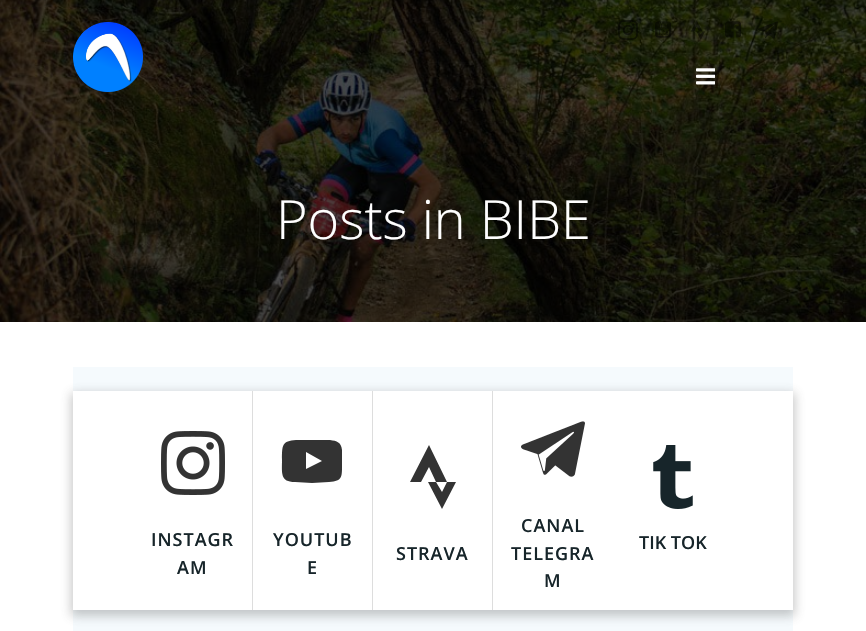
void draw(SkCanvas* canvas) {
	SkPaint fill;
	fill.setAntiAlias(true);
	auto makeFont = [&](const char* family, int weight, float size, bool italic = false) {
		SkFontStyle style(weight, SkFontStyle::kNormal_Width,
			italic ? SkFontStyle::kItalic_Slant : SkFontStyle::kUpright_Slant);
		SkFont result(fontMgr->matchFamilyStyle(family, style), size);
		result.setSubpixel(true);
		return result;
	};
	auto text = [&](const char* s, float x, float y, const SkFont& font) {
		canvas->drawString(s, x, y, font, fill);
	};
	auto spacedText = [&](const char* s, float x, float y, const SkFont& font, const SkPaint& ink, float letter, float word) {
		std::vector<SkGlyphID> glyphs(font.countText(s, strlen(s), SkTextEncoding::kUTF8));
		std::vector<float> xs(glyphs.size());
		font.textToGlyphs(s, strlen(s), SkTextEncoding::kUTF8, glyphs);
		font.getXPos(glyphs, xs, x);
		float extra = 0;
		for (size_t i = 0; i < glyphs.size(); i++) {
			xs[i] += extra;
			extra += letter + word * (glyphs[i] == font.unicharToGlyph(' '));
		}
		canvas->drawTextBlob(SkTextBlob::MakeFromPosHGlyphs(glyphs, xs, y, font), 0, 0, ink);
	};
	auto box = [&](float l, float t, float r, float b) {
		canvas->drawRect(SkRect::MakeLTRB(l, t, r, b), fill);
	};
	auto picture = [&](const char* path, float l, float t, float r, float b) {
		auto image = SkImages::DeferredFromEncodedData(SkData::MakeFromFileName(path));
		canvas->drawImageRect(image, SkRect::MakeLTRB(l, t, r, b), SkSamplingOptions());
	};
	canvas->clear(0xFFFFFFFF);
	picture("image7.png", 0, 0, 866, 322);
	picture("image0.png", 73, 22, 143, 92);
	picture("image1.png", 618, 20, 638, 40);
	picture("image2.png", 655, 21, 671, 38);
	picture("image3.png", 691, 20, 705, 40);
	picture("image4.png", 725, 21, 741, 38);
	picture("image5.png", 758, 21, 778, 39);
	fill.setColor(0x1A000000);
	canvas->drawCircle(706, 77, 17, fill);
	picture("image6.png", 696, 68, 715, 85);
	fill.setColor(0xFFF5FAFD);
	box(73, 367, 793, 631);
	fill.setColor(0x4D4A4A4A);
	fill.setMaskFilter(SkMaskFilter::MakeBlur(kNormal_SkBlurStyle, 5));
	canvas->drawRect(SkRect::MakeLTRB(71, 393, 795, 616), fill);
	fill.setMaskFilter(nullptr);
	fill.setColor(0xFFFFFFFF);
	box(73, 391, 793, 610);
	fill.setColor(0xFFDDDDDD);
	box(252, 391, 253, 610);
	picture("image8.png", 161, 431, 225, 495);
	box(372, 391, 373, 610);
	fill.setColor(0xFF333333);
	canvas->drawPath(SkPathBuilder().moveTo(306, 469).lineTo(322, 461).lineTo(306, 452).close().moveTo(312, 440).lineTo(330, 440).cubicTo(337, 441, 341, 442, 342, 450).lineTo(342, 462).cubicTo(342, 477, 343, 481, 329, 482).lineTo(312, 483).lineTo(295, 482).cubicTo(280, 482, 282, 473, 282, 460).cubicTo(282, 445, 282, 441, 296, 440).close().detach(), fill);
	picture("image9.png", 521, 421, 585, 477);
	picture("image10.png", 653, 445, 693, 509);
	fill.setColor(0xFFDDDDDD);
	box(492, 391, 493, 610);
	fill.setColor(0xFF333333);
	canvas->drawPath(SkPathBuilder().moveTo(429, 445).lineTo(447, 482).lineTo(436, 482).lineTo(429, 467).lineTo(421, 482).lineTo(410, 482).close().moveTo(442, 509).lineTo(428, 482).lineTo(436, 482).lineTo(442, 492).lineTo(447, 482).lineTo(456, 482).close().detach(), fill);
	auto font1 = makeFont("Open Sans", 300, 54);
	fill.setColor(0xFFFFFFFF);
	text("Posts in BIBE", 276, 239, font1);
	auto font2 = makeFont("Open Sans", 600, 18);
	fill.setColor(0xFF17252A);
	spacedText("INSTAGR", 151, 546, font2, fill, 1, 0);
	spacedText("AM", 177, 574, font2, fill, 1, 0);
	spacedText("YOUTUB", 273, 546, font2, fill, 1, 0);
	spacedText("E", 307, 574, font2, fill, 1, 0);
	spacedText("CANAL", 521, 532, font2, fill, 1, 0);
	spacedText("TELEGRA", 511, 560, font2, fill, 1, 0);
	spacedText("M", 544, 587, font2, fill, 1, 0);
	text("TIK TOK", 639, 549, font2);
	spacedText("STRAVA", 396, 560, font2, fill, 1, 0);
}
